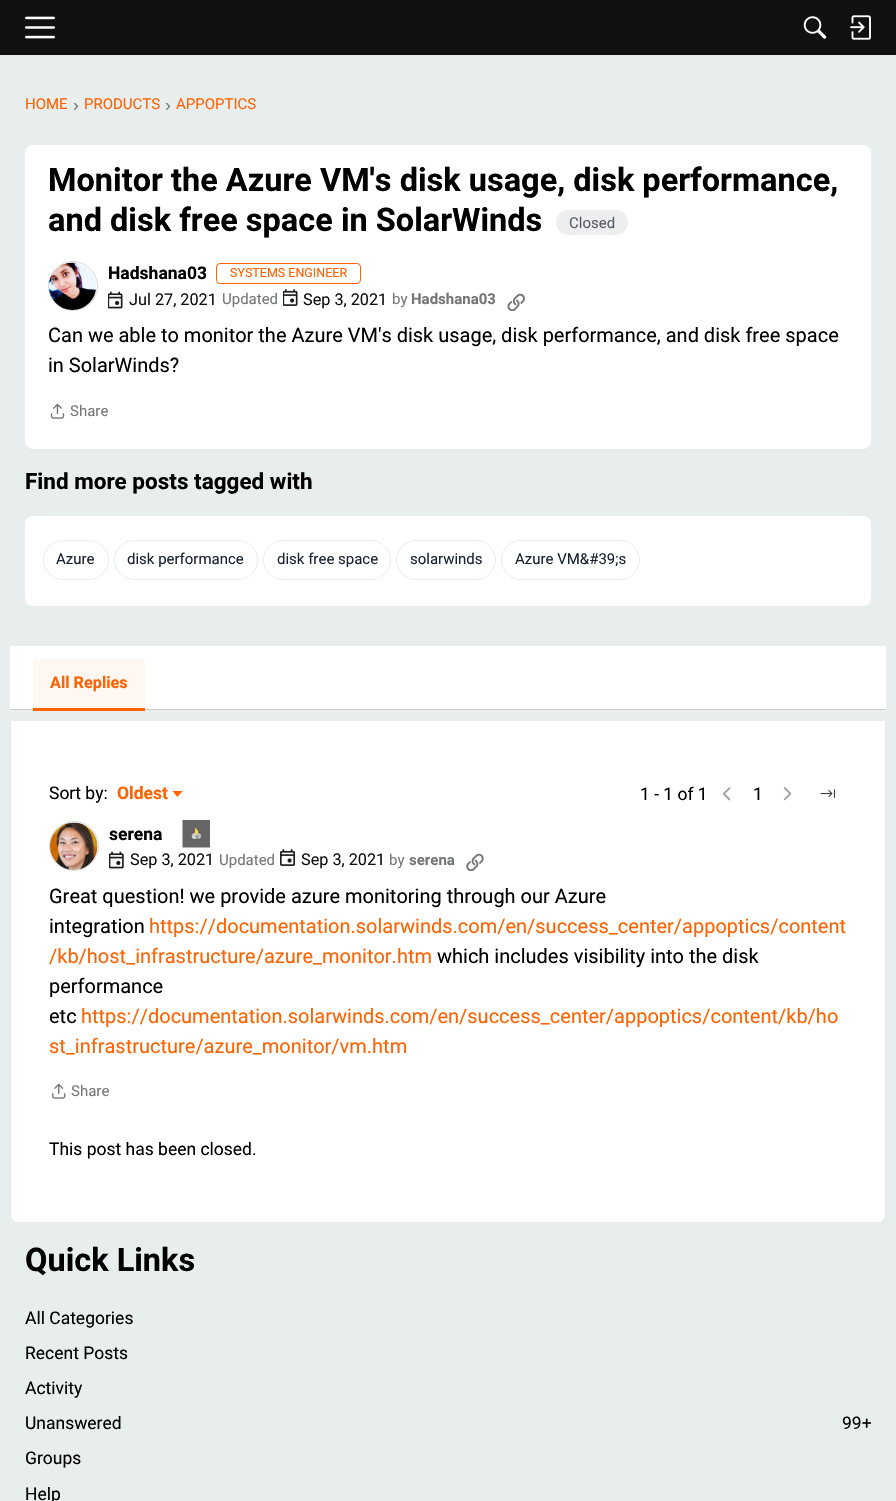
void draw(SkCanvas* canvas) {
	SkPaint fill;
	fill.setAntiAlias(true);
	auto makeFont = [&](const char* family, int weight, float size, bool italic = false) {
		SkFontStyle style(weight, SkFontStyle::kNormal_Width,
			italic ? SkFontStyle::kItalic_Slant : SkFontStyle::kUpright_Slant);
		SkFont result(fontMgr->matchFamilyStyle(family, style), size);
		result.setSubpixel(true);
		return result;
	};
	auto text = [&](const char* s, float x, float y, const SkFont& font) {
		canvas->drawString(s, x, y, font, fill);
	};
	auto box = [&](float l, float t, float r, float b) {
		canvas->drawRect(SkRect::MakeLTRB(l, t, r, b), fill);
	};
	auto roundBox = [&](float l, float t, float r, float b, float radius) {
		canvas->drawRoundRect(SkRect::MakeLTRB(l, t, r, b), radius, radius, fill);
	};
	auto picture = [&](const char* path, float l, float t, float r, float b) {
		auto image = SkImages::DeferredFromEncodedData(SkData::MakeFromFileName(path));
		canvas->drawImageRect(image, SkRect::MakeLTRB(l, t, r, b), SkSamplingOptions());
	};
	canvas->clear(0xFFE8EDED);
	fill.setColor(0xFF111111);
	box(0, 0, 896, 55);
	picture("image0.png", 25, 16, 55, 39);
	picture("image1.png", 803, 16, 827, 39);
	picture("image2.png", 850, 15, 871, 40);
	fill.setColor(0xFFFFFFFF);
	roundBox(25, 145, 871, 449, 8);
	fill.setColor(0xFFEEEEEF);
	canvas->drawRoundRect(SkRect::MakeLTRB(556.5f, 210.5f, 627.5f, 234.5f), 12, 12, fill);
	fill.setStyle(SkPaint::kStroke_Style);
	fill.setStrokeWidth(1);
	canvas->drawRoundRect(SkRect::MakeLTRB(556.5f, 210.5f, 627.5f, 234.5f), 12, 12, fill);
	fill.setColor(0xFFD9D9D9);
	canvas->drawCircle(73, 286, 24.5f, fill);
	picture("image3.png", 49, 262, 96, 310);
	fill.setColor(0xFFFF6200);
	canvas->drawRoundRect(SkRect::MakeLTRB(216.5f, 263.5f, 360.5f, 283.5f), 3.5f, 3.5f, fill);
	picture("image4.png", 108, 291, 123, 309);
	picture("image5.png", 283, 289, 298, 306);
	picture("image6.png", 507, 293, 525, 311);
	picture("image7.png", 50, 403, 65, 419);
	fill.setStyle(SkPaint::kFill_Style);
	fill.setColor(0xFFFFFFFF);
	roundBox(25, 516, 871, 606, 8);
	fill.setStyle(SkPaint::kStroke_Style);
	fill.setColor(0xFFE8EDED);
	canvas->drawRoundRect(SkRect::MakeLTRB(43.5f, 540.5f, 108.5f, 579.5f), 19.5f, 19.5f, fill);
	canvas->drawRoundRect(SkRect::MakeLTRB(114.5f, 540.5f, 257.5f, 579.5f), 19.5f, 19.5f, fill);
	canvas->drawRoundRect(SkRect::MakeLTRB(263.5f, 540.5f, 390.5f, 579.5f), 19.5f, 19.5f, fill);
	canvas->drawRoundRect(SkRect::MakeLTRB(396.5f, 540.5f, 495.5f, 579.5f), 19.5f, 19.5f, fill);
	canvas->drawRoundRect(SkRect::MakeLTRB(501.5f, 540.5f, 639.5f, 579.5f), 19.5f, 19.5f, fill);
	fill.setStyle(SkPaint::kFill_Style);
	fill.setColor(0xFFFFFFFF);
	box(10, 646, 886, 709);
	fill.setColor(0xFFCCCCCC);
	box(10, 709, 886, 710);
	fill.setColor(0x0DFF6200);
	box(33, 659, 145, 708);
	fill.setColor(0xFFFF6200);
	box(33, 708, 145, 711);
	fill.setColor(0xFFFFFFFF);
	canvas->drawPath(SkPathBuilder().moveTo(10.5f, 720.5f).lineTo(885.5f, 720.5f).lineTo(885.5f, 1215).cubicTo(885.5f, 1219, 882, 1222.5f, 878, 1222.5f).lineTo(18, 1222.5f).cubicTo(14, 1222.5f, 10.5f, 1219, 10.5f, 1215).close().detach(), fill);
	fill.setStyle(SkPaint::kStroke_Style);
	fill.setColor(0xFFEBEBEB);
	canvas->drawPath(SkPathBuilder().moveTo(10.5f, 720.5f).lineTo(885.5f, 720.5f).lineTo(885.5f, 1215).cubicTo(885.5f, 1219, 882, 1222.5f, 878, 1222.5f).lineTo(18, 1222.5f).cubicTo(14, 1222.5f, 10.5f, 1219, 10.5f, 1215).close().detach(), fill);
	fill.setStyle(SkPaint::kFill_Style);
	fill.setColor(0xFFFF6200);
	canvas->drawPath(SkPathBuilder().moveTo(172.5f, 791).lineTo(182.5f, 791).lineTo(177.5f, 797).close().detach(), fill);
	picture("image8.png", 723, 787, 731, 801);
	picture("image9.png", 783, 787, 792, 801);
	picture("image10.png", 820, 789, 835, 798);
	fill.setStyle(SkPaint::kStroke_Style);
	fill.setColor(0xFFD9D9D9);
	canvas->drawCircle(74, 846, 24.5f, fill);
	picture("image11.png", 50, 822, 98, 870);
	picture("image12.png", 182, 820, 210, 848);
	picture("image13.png", 109, 851, 124, 869);
	picture("image14.png", 280, 849, 295, 866);
	picture("image15.png", 466, 853, 484, 871);
	picture("image16.png", 52, 1083, 66, 1099);
	auto font1 = makeFont("Roboto", 400, 15);
	fill.setStyle(SkPaint::kFill_Style);
	fill.setColor(0xFFFF6200);
	text("HOME", 25, 109, font1);
	auto font2 = makeFont("Liberation Sans", 400, 17.5f);
	fill.setColor(0xFF747777);
	text("›", 73, 111, font2);
	fill.setColor(0xFFFF6200);
	text("PRODUCTS", 84, 109, font1);
	fill.setColor(0xFF747777);
	text("›", 165, 111, font2);
	fill.setColor(0xFFFF6200);
	text("APPOPTICS", 176, 109, font1);
	auto font3 = makeFont("Roboto", 700, 32.5f);
	fill.setColor(0xFF000000);
	text("Monitor the Azure VM's disk usage, disk performance,", 48, 191, font3);
	text("and disk free space in SolarWinds", 48, 231, font3);
	fill.setColor(0xFF555A62);
	text("Closed", 569, 228, font1);
	auto font4 = makeFont("Roboto", 700, 17.5f);
	fill.setColor(0xFF000000);
	text("Hadshana03", 108, 279, font4);
	auto font5 = makeFont("Roboto", 400, 12.5f);
	fill.setColor(0xFFFF6200);
	text("SYSTEMS ENGINEER", 230, 277, font5);
	auto font6 = makeFont("Roboto", 400, 16.25f);
	fill.setColor(0xFF111111);
	text("Jul 27, 2021", 129, 305, font6);
	fill.setColor(0xFF747777);
	text("Updated", 222, 304, font1);
	fill.setColor(0xFF111111);
	text("Sep 3, 2021", 303, 305, font6);
	fill.setColor(0xFF747777);
	text("by", 392, 304, font1);
	auto font7 = makeFont("Roboto", 700, 15);
	text("Hadshana03", 411, 304, font7);
	auto font8 = makeFont("Roboto", 400, 20);
	fill.setColor(0xFF000000);
	text("Can we able to monitor the Azure VM's disk usage, disk performance, and disk free space", 48, 342, font8);
	text("in SolarWinds?", 48, 372, font8);
	fill.setColor(0xFF747777);
	text("Share", 70, 416, font1);
	auto font9 = makeFont("Roboto", 700, 22.5f);
	fill.setColor(0xFF000000);
	text("Find more posts tagged with", 25, 489, font9);
	fill.setColor(0xFF192232);
	text("Azure", 56, 564, font1);
	text("disk performance", 127, 564, font1);
	text("disk free space", 277, 564, font1);
	text("solarwinds", 410, 564, font1);
	text("Azure VM&#39;s", 515, 564, font1);
	auto font10 = makeFont("Roboto", 700, 16.25f);
	fill.setColor(0xFFFF6200);
	text("All Replies", 50, 688, font10);
	auto font11 = makeFont("Roboto", 400, 17.5f);
	fill.setColor(0xFF000000);
	text("Sort by:", 49, 799, font11);
	fill.setColor(0xFFFF6200);
	text("Oldest", 117, 799, font4);
	fill.setColor(0xFF000000);
	text("1 - 1 of 1", 640, 800, font11);
	text("1", 753, 800, font11);
	text("serena", 109, 840, font4);
	fill.setColor(0xFF111111);
	text("Sep 3, 2021", 130, 865, font6);
	fill.setColor(0xFF747777);
	text("Updated", 219, 865, font1);
	fill.setColor(0xFF111111);
	text("Sep 3, 2021", 301, 865, font6);
	fill.setColor(0xFF747777);
	text("by", 389, 865, font1);
	text("serena", 409, 865, font7);
	fill.setColor(0xFF000000);
	text("Great question! we provide azure monitoring through our Azure", 49, 903, font8);
	text("integration", 49, 933, font8);
	fill.setColor(0xFFFF6200);
	text("https://documentation.solarwinds.com/en/success_center/appoptics/content", 149, 933, font8);
	text("/kb/host_infrastructure/azure_monitor.htm", 49, 963, font8);
	fill.setColor(0xFF000000);
	text("which includes visibility into the disk", 437, 963, font8);
	text("performance", 49, 993, font8);
	text("etc", 49, 1023, font8);
	fill.setColor(0xFFFF6200);
	text("https://documentation.solarwinds.com/en/success_center/appoptics/content/kb/ho", 81, 1023, font8);
	text("st_infrastructure/azure_monitor/vm.htm", 49, 1053, font8);
	fill.setColor(0xFF747777);
	text("Share", 71, 1096, font1);
	fill.setColor(0xFF000000);
	text("This post has been closed.", 49, 1155, font11);
	text("Quick Links", 25, 1271, font3);
	text("All Categories", 25, 1324, font11);
	text("Recent Posts", 25, 1359, font11);
	text("Activity", 25, 1394, font11);
	text("Unanswered", 25, 1429, font11);
	text("99+", 842, 1429, font11);
	text("Groups", 25, 1464, font11);
	text("Help", 25, 1500, font11);
}
